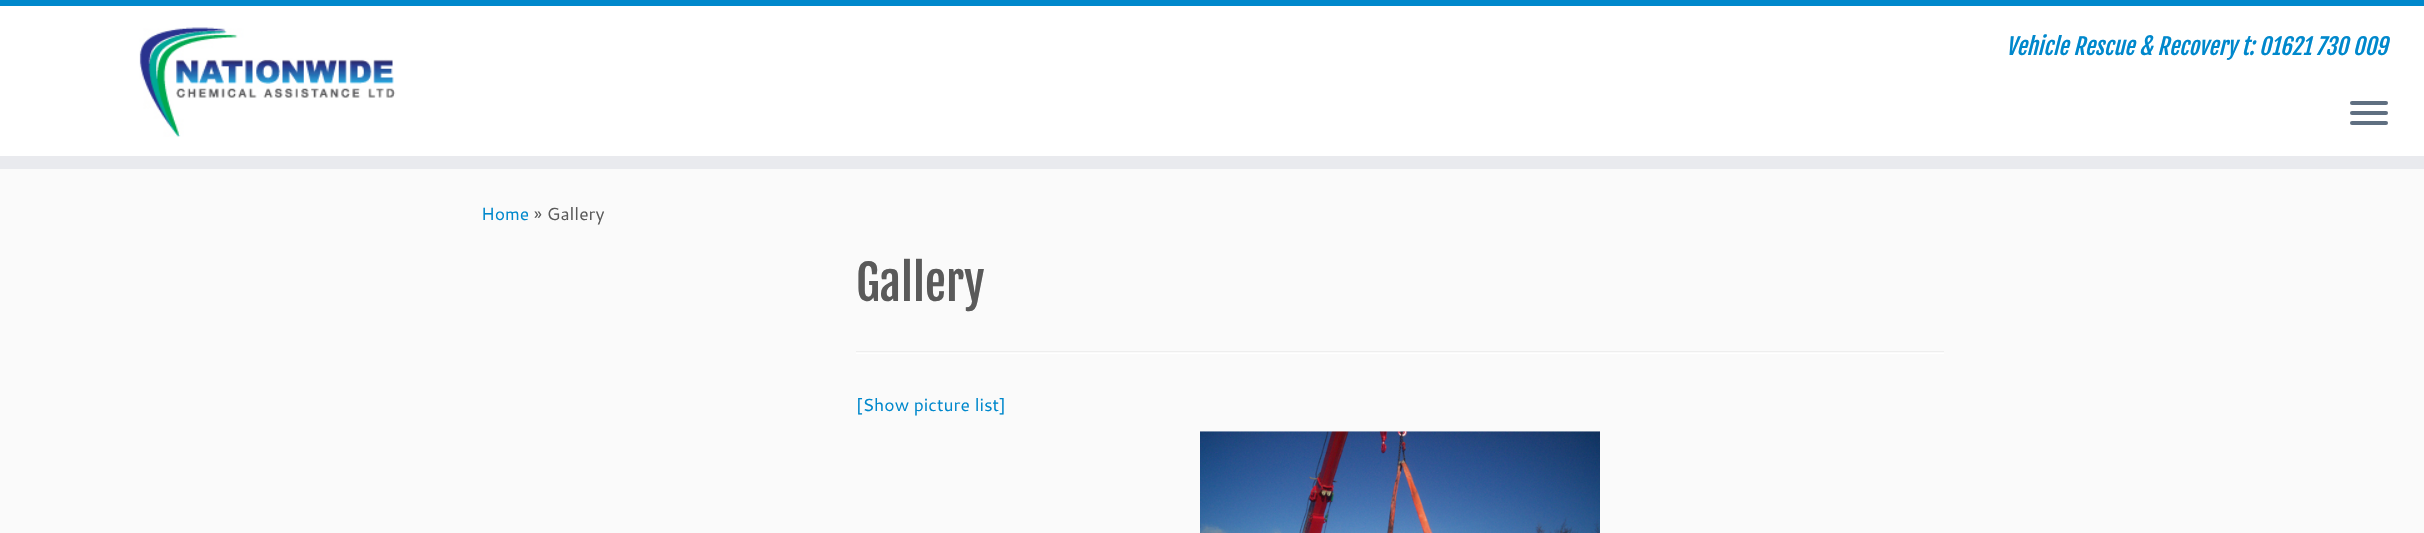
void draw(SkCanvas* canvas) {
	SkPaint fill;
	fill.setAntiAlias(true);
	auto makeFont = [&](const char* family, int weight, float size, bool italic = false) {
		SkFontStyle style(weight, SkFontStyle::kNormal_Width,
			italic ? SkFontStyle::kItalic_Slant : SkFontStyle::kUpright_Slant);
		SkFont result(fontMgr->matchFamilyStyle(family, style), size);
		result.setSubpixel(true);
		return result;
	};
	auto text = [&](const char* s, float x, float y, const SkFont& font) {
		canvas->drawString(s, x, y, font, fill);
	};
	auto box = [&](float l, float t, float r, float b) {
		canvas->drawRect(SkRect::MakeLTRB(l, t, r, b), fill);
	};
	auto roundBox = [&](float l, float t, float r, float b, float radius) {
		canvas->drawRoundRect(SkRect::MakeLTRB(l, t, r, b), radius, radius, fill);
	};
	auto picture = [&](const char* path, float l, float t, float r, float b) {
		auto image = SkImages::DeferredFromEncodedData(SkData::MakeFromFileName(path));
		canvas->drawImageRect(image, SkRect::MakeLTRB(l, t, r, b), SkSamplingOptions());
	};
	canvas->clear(0xFFFAFAFA);
	fill.setColor(0xFFFFFFFF);
	box(0, 6, 2424, 156);
	fill.setColor(0xFF0088CC);
	box(0, 0, 2424, 6);
	fill.setColor(0xFFE9EAEE);
	box(0, 156, 2424, 169);
	picture("image0.png", 139, 27, 396, 137);
	fill.setColor(0xFF5F6F81);
	roundBox(2350, 101, 2388, 105, 2);
	roundBox(2350, 111, 2388, 115, 2);
	roundBox(2350, 121, 2388, 125, 2);
	fill.setColor(0xFFEEEEEE);
	box(856, 351, 1944, 352);
	fill.setColor(0xFFFFFFFF);
	box(856, 353, 1944, 354);
	picture("image1.png", 1200, 431, 1600, 533);
	auto font1 = makeFont("Fjalla One", 400, 22.5f, true);
	fill.setColor(0xFF0088CC);
	text("Vehicle Rescue & Recovery t: 01621 730 009", 2006, 55, font1);
	auto font2 = makeFont("Cantarell", 400, 17.5f);
	text("Home", 481, 220, font2);
	fill.setColor(0xFF5A5A5A);
	text("» Gallery", 534, 220, font2);
	auto font3 = makeFont("Fjalla One", 400, 47.5f);
	text("Gallery", 856, 301, font3);
	fill.setColor(0xFF0088CC);
	text("[Show picture list]", 856, 411, font2);
}
